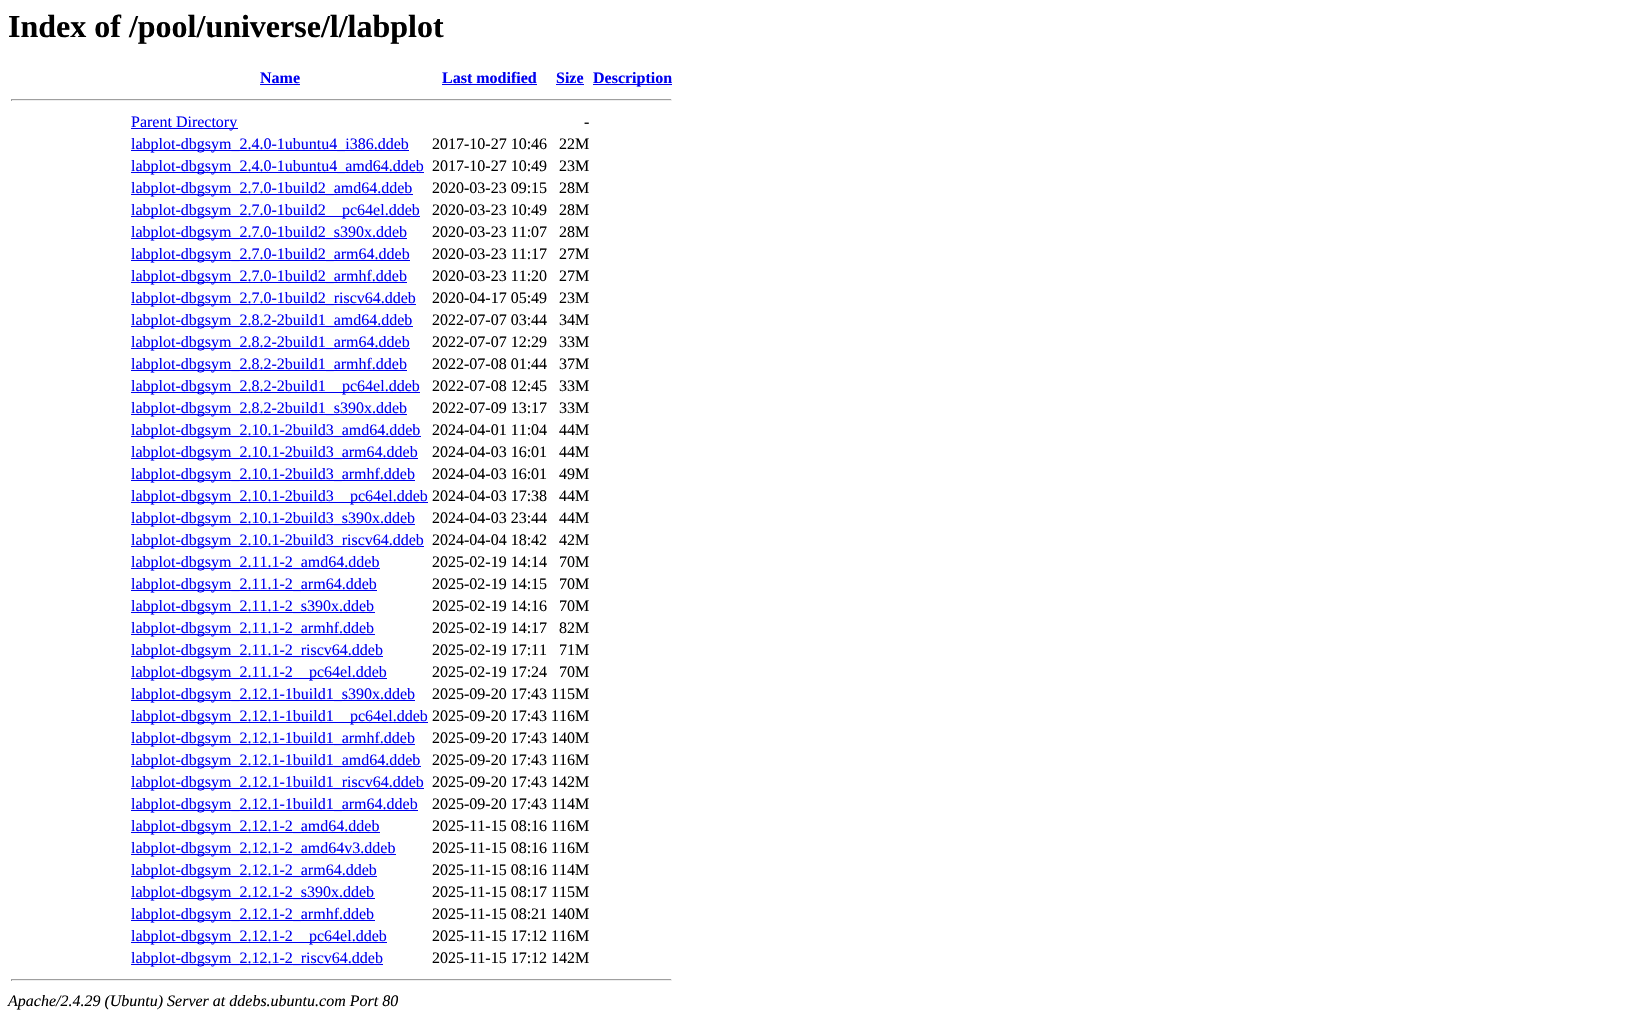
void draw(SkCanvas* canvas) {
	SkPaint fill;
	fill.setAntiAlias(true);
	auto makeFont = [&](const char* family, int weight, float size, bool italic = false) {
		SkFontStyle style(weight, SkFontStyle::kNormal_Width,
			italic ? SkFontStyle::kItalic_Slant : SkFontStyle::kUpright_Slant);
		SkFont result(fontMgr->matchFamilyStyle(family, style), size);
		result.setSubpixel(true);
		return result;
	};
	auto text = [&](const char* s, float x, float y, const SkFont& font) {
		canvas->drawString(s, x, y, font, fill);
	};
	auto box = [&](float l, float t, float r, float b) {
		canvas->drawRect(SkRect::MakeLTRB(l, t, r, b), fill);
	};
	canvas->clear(0xFFFFFFFF);
	fill.setColor(0xFF0000EE);
	box(260, 84, 300, 85);
	box(442, 84, 537, 85);
	box(556, 84, 584, 85);
	box(593, 84, 672, 85);
	fill.setColor(0xFF9F9F9F);
	box(11, 99, 672, 100);
	fill.setColor(0xFFEEEEEE);
	box(671, 99, 672, 101);
	box(11, 100, 672, 101);
	fill.setColor(0xFF9F9F9F);
	box(11, 99, 12, 101);
	fill.setColor(0xFF0000EE);
	box(131, 128, 238, 129);
	box(131, 150, 409, 151);
	box(131, 172, 424, 173);
	box(131, 194, 413, 195);
	box(131, 216, 420, 217);
	box(131, 238, 407, 239);
	box(131, 260, 410, 261);
	box(131, 282, 407, 283);
	box(131, 304, 416, 305);
	box(131, 326, 413, 327);
	box(131, 348, 410, 349);
	box(131, 370, 407, 371);
	box(131, 392, 420, 393);
	box(131, 414, 407, 415);
	box(131, 436, 421, 437);
	box(131, 458, 418, 459);
	box(131, 480, 415, 481);
	box(131, 502, 428, 503);
	box(131, 524, 415, 525);
	box(131, 546, 424, 547);
	box(131, 568, 380, 569);
	box(131, 590, 377, 591);
	box(131, 612, 375, 613);
	box(131, 634, 375, 635);
	box(131, 656, 383, 657);
	box(131, 678, 387, 679);
	box(131, 700, 415, 701);
	box(131, 722, 428, 723);
	box(131, 744, 415, 745);
	box(131, 766, 421, 767);
	box(131, 788, 424, 789);
	box(131, 810, 418, 811);
	box(131, 832, 380, 833);
	box(131, 854, 396, 855);
	box(131, 876, 377, 877);
	box(131, 898, 375, 899);
	box(131, 920, 375, 921);
	box(131, 942, 387, 943);
	box(131, 964, 383, 965);
	fill.setColor(0xFF9F9F9F);
	box(11, 979, 672, 980);
	fill.setColor(0xFFEEEEEE);
	box(671, 979, 672, 981);
	box(11, 980, 672, 981);
	fill.setColor(0xFF9F9F9F);
	box(11, 979, 12, 981);
	auto font1 = makeFont("Liberation Serif", 700, 32);
	fill.setColor(0xFF000000);
	text("Index of /pool/universe/l/labplot", 8, 37, font1);
	auto font2 = makeFont("Liberation Serif", 700, 16);
	fill.setColor(0xFF0000EE);
	text("Name", 260, 83, font2);
	text("Last modified", 442, 83, font2);
	text("Size", 556, 83, font2);
	text("Description", 593, 83, font2);
	auto font3 = makeFont("Liberation Serif", 400, 16);
	text("Parent Directory", 131, 127, font3);
	fill.setColor(0xFF000000);
	text("-", 584, 127, font3);
	fill.setColor(0xFF0000EE);
	text("labplot-dbgsym_2.4.0-1ubuntu4_i386.ddeb", 131, 149, font3);
	fill.setColor(0xFF000000);
	text("2017-10-27 10:46", 432, 149, font3);
	text("22M", 559, 149, font3);
	fill.setColor(0xFF0000EE);
	text("labplot-dbgsym_2.4.0-1ubuntu4_amd64.ddeb", 131, 171, font3);
	fill.setColor(0xFF000000);
	text("2017-10-27 10:49", 432, 171, font3);
	text("23M", 559, 171, font3);
	fill.setColor(0xFF0000EE);
	text("labplot-dbgsym_2.7.0-1build2_amd64.ddeb", 131, 193, font3);
	fill.setColor(0xFF000000);
	text("2020-03-23 09:15", 432, 193, font3);
	text("28M", 559, 193, font3);
	fill.setColor(0xFF0000EE);
	text("labplot-dbgsym_2.7.0-1build2", 131, 215, font3);
	text("pc64el.ddeb", 342, 215, font3);
	fill.setColor(0xFF000000);
	text("2020-03-23 10:49", 432, 215, font3);
	text("28M", 559, 215, font3);
	fill.setColor(0xFF0000EE);
	text("labplot-dbgsym_2.7.0-1build2_s390x.ddeb", 131, 237, font3);
	fill.setColor(0xFF000000);
	text("2020-03-23 11:07", 432, 237, font3);
	text("28M", 559, 237, font3);
	fill.setColor(0xFF0000EE);
	text("labplot-dbgsym_2.7.0-1build2_arm64.ddeb", 131, 259, font3);
	fill.setColor(0xFF000000);
	text("2020-03-23 11:17", 432, 259, font3);
	text("27M", 559, 259, font3);
	fill.setColor(0xFF0000EE);
	text("labplot-dbgsym_2.7.0-1build2_armhf.ddeb", 131, 281, font3);
	fill.setColor(0xFF000000);
	text("2020-03-23 11:20", 432, 281, font3);
	text("27M", 559, 281, font3);
	fill.setColor(0xFF0000EE);
	text("labplot-dbgsym_2.7.0-1build2_riscv64.ddeb", 131, 303, font3);
	fill.setColor(0xFF000000);
	text("2020-04-17 05:49", 432, 303, font3);
	text("23M", 559, 303, font3);
	fill.setColor(0xFF0000EE);
	text("labplot-dbgsym_2.8.2-2build1_amd64.ddeb", 131, 325, font3);
	fill.setColor(0xFF000000);
	text("2022-07-07 03:44", 432, 325, font3);
	text("34M", 559, 325, font3);
	fill.setColor(0xFF0000EE);
	text("labplot-dbgsym_2.8.2-2build1_arm64.ddeb", 131, 347, font3);
	fill.setColor(0xFF000000);
	text("2022-07-07 12:29", 432, 347, font3);
	text("33M", 559, 347, font3);
	fill.setColor(0xFF0000EE);
	text("labplot-dbgsym_2.8.2-2build1_armhf.ddeb", 131, 369, font3);
	fill.setColor(0xFF000000);
	text("2022-07-08 01:44", 432, 369, font3);
	text("37M", 559, 369, font3);
	fill.setColor(0xFF0000EE);
	text("labplot-dbgsym_2.8.2-2build1", 131, 391, font3);
	text("pc64el.ddeb", 342, 391, font3);
	fill.setColor(0xFF000000);
	text("2022-07-08 12:45", 432, 391, font3);
	text("33M", 559, 391, font3);
	fill.setColor(0xFF0000EE);
	text("labplot-dbgsym_2.8.2-2build1_s390x.ddeb", 131, 413, font3);
	fill.setColor(0xFF000000);
	text("2022-07-09 13:17", 432, 413, font3);
	text("33M", 559, 413, font3);
	fill.setColor(0xFF0000EE);
	text("labplot-dbgsym_2.10.1-2build3_amd64.ddeb", 131, 435, font3);
	fill.setColor(0xFF000000);
	text("2024-04-01 11:04", 432, 435, font3);
	text("44M", 559, 435, font3);
	fill.setColor(0xFF0000EE);
	text("labplot-dbgsym_2.10.1-2build3_arm64.ddeb", 131, 457, font3);
	fill.setColor(0xFF000000);
	text("2024-04-03 16:01", 432, 457, font3);
	text("44M", 559, 457, font3);
	fill.setColor(0xFF0000EE);
	text("labplot-dbgsym_2.10.1-2build3_armhf.ddeb", 131, 479, font3);
	fill.setColor(0xFF000000);
	text("2024-04-03 16:01", 432, 479, font3);
	text("49M", 559, 479, font3);
	fill.setColor(0xFF0000EE);
	text("labplot-dbgsym_2.10.1-2build3", 131, 501, font3);
	text("pc64el.ddeb", 350, 501, font3);
	fill.setColor(0xFF000000);
	text("2024-04-03 17:38", 432, 501, font3);
	text("44M", 559, 501, font3);
	fill.setColor(0xFF0000EE);
	text("labplot-dbgsym_2.10.1-2build3_s390x.ddeb", 131, 523, font3);
	fill.setColor(0xFF000000);
	text("2024-04-03 23:44", 432, 523, font3);
	text("44M", 559, 523, font3);
	fill.setColor(0xFF0000EE);
	text("labplot-dbgsym_2.10.1-2build3_riscv64.ddeb", 131, 545, font3);
	fill.setColor(0xFF000000);
	text("2024-04-04 18:42", 432, 545, font3);
	text("42M", 559, 545, font3);
	fill.setColor(0xFF0000EE);
	text("labplot-dbgsym_2.11.1-2_amd64.ddeb", 131, 567, font3);
	fill.setColor(0xFF000000);
	text("2025-02-19 14:14", 432, 567, font3);
	text("70M", 559, 567, font3);
	fill.setColor(0xFF0000EE);
	text("labplot-dbgsym_2.11.1-2_arm64.ddeb", 131, 589, font3);
	fill.setColor(0xFF000000);
	text("2025-02-19 14:15", 432, 589, font3);
	text("70M", 559, 589, font3);
	fill.setColor(0xFF0000EE);
	text("labplot-dbgsym_2.11.1-2_s390x.ddeb", 131, 611, font3);
	fill.setColor(0xFF000000);
	text("2025-02-19 14:16", 432, 611, font3);
	text("70M", 559, 611, font3);
	fill.setColor(0xFF0000EE);
	text("labplot-dbgsym_2.11.1-2_armhf.ddeb", 131, 633, font3);
	fill.setColor(0xFF000000);
	text("2025-02-19 14:17", 432, 633, font3);
	text("82M", 559, 633, font3);
	fill.setColor(0xFF0000EE);
	text("labplot-dbgsym_2.11.1-2_riscv64.ddeb", 131, 655, font3);
	fill.setColor(0xFF000000);
	text("2025-02-19 17:11", 432, 655, font3);
	text("71M", 559, 655, font3);
	fill.setColor(0xFF0000EE);
	text("labplot-dbgsym_2.11.1-2", 131, 677, font3);
	text("pc64el.ddeb", 309, 677, font3);
	fill.setColor(0xFF000000);
	text("2025-02-19 17:24", 432, 677, font3);
	text("70M", 559, 677, font3);
	fill.setColor(0xFF0000EE);
	text("labplot-dbgsym_2.12.1-1build1_s390x.ddeb", 131, 699, font3);
	fill.setColor(0xFF000000);
	text("2025-09-20 17:43 115M", 432, 699, font3);
	fill.setColor(0xFF0000EE);
	text("labplot-dbgsym_2.12.1-1build1", 131, 721, font3);
	text("pc64el.ddeb", 350, 721, font3);
	fill.setColor(0xFF000000);
	text("2025-09-20 17:43 116M", 432, 721, font3);
	fill.setColor(0xFF0000EE);
	text("labplot-dbgsym_2.12.1-1build1_armhf.ddeb", 131, 743, font3);
	fill.setColor(0xFF000000);
	text("2025-09-20 17:43 140M", 432, 743, font3);
	fill.setColor(0xFF0000EE);
	text("labplot-dbgsym_2.12.1-1build1_amd64.ddeb", 131, 765, font3);
	fill.setColor(0xFF000000);
	text("2025-09-20 17:43 116M", 432, 765, font3);
	fill.setColor(0xFF0000EE);
	text("labplot-dbgsym_2.12.1-1build1_riscv64.ddeb", 131, 787, font3);
	fill.setColor(0xFF000000);
	text("2025-09-20 17:43 142M", 432, 787, font3);
	fill.setColor(0xFF0000EE);
	text("labplot-dbgsym_2.12.1-1build1_arm64.ddeb", 131, 809, font3);
	fill.setColor(0xFF000000);
	text("2025-09-20 17:43 114M", 432, 809, font3);
	fill.setColor(0xFF0000EE);
	text("labplot-dbgsym_2.12.1-2_amd64.ddeb", 131, 831, font3);
	fill.setColor(0xFF000000);
	text("2025-11-15 08:16 116M", 432, 831, font3);
	fill.setColor(0xFF0000EE);
	text("labplot-dbgsym_2.12.1-2_amd64v3.ddeb", 131, 853, font3);
	fill.setColor(0xFF000000);
	text("2025-11-15 08:16 116M", 432, 853, font3);
	fill.setColor(0xFF0000EE);
	text("labplot-dbgsym_2.12.1-2_arm64.ddeb", 131, 875, font3);
	fill.setColor(0xFF000000);
	text("2025-11-15 08:16 114M", 432, 875, font3);
	fill.setColor(0xFF0000EE);
	text("labplot-dbgsym_2.12.1-2_s390x.ddeb", 131, 897, font3);
	fill.setColor(0xFF000000);
	text("2025-11-15 08:17 115M", 432, 897, font3);
	fill.setColor(0xFF0000EE);
	text("labplot-dbgsym_2.12.1-2_armhf.ddeb", 131, 919, font3);
	fill.setColor(0xFF000000);
	text("2025-11-15 08:21 140M", 432, 919, font3);
	fill.setColor(0xFF0000EE);
	text("labplot-dbgsym_2.12.1-2", 131, 941, font3);
	text("pc64el.ddeb", 309, 941, font3);
	fill.setColor(0xFF000000);
	text("2025-11-15 17:12 116M", 432, 941, font3);
	fill.setColor(0xFF0000EE);
	text("labplot-dbgsym_2.12.1-2_riscv64.ddeb", 131, 963, font3);
	fill.setColor(0xFF000000);
	text("2025-11-15 17:12 142M", 432, 963, font3);
	auto font4 = makeFont("Liberation Serif", 400, 16, true);
	text("Apache/2.4.29 (Ubuntu) Server at ddebs.ubuntu.com Port 80", 8, 1006, font4);
}
